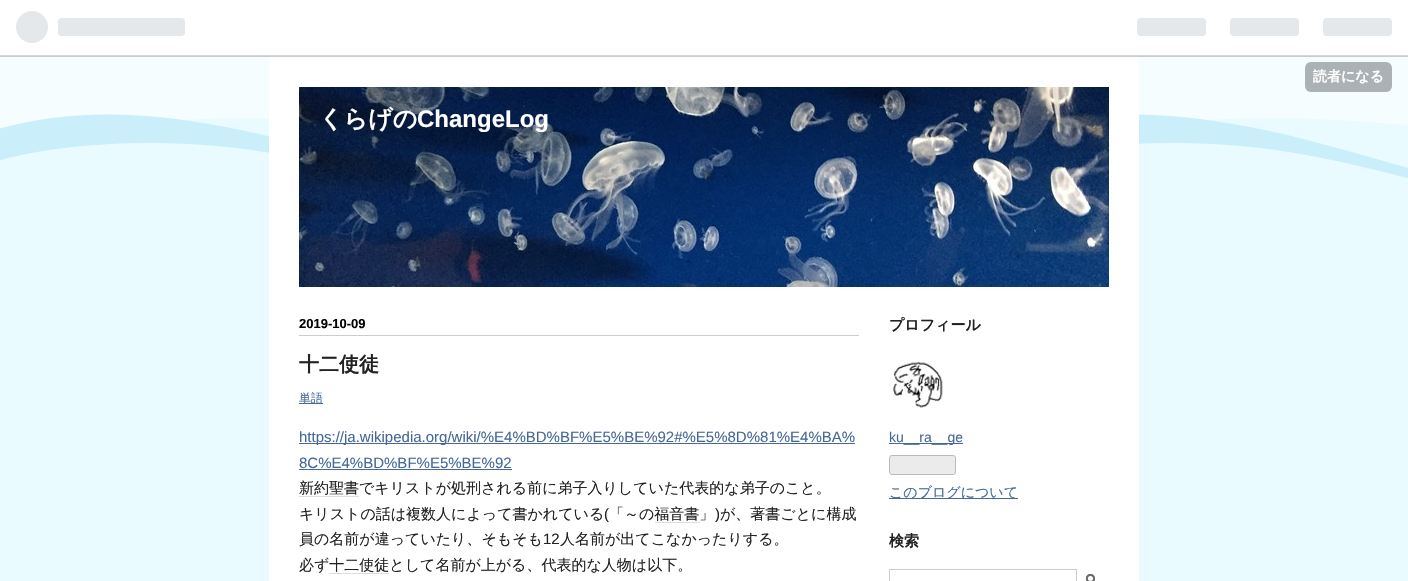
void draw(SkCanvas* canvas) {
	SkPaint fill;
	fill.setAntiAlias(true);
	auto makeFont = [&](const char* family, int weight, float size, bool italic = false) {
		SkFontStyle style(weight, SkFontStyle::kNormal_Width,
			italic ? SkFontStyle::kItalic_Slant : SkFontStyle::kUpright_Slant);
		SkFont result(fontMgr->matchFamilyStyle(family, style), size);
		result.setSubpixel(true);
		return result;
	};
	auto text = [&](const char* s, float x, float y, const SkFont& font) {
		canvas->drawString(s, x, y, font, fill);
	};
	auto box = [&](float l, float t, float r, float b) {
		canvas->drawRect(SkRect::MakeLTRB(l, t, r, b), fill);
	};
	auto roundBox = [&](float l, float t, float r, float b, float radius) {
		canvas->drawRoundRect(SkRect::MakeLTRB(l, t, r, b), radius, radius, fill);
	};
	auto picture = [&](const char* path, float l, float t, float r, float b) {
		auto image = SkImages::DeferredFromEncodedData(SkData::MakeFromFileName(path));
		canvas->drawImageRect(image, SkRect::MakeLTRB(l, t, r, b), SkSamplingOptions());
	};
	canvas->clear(0xFFE9FBFF);
	picture("image0.png", 0, 57, 1408, 222);
	fill.setColor(0xFFFFFFFF);
	box(0, 0, 1408, 55);
	fill.setColor(0xFFD2D8DD);
	box(0, 55, 1408, 56);
	fill.setColor(0xFFCCCCCC);
	box(0, 56, 1408, 57);
	picture("image1.png", 16, 11, 185, 43);
	picture("image2.png", 1137, 18, 1392, 36);
	fill.setColor(0xFFABB2B5);
	roundBox(1305, 62, 1392, 92, 6);
	fill.setColor(0xFFFFFFFF);
	box(269, 57, 1139, 581);
	picture("image3.png", 299, 87, 1109, 287);
	fill.setColor(0xFFCCCCCC);
	box(299, 335, 859, 336);
	fill.setColor(0xFF456898);
	box(299, 403, 323, 404);
	box(299, 443, 855, 444);
	box(299, 469, 512, 470);
	fill.setColor(0xFFDEDEDE);
	box(299, 496, 359, 497);
	box(655, 522, 700, 523);
	picture("image4.png", 893, 361, 943, 408);
	fill.setColor(0xFF456898);
	box(889, 443, 963, 444);
	fill.setColor(0xFFEBEBEB);
	canvas->drawRoundRect(SkRect::MakeLTRB(889.5f, 455.5f, 955.5f, 474.5f), 2.5f, 2.5f, fill);
	fill.setStyle(SkPaint::kStroke_Style);
	fill.setStrokeWidth(1);
	fill.setColor(0xFFBBBBBB);
	canvas->drawRoundRect(SkRect::MakeLTRB(889.5f, 455.5f, 955.5f, 474.5f), 2.5f, 2.5f, fill);
	fill.setStyle(SkPaint::kFill_Style);
	fill.setColor(0xFF456898);
	box(889, 498, 1018, 499);
	fill.setStyle(SkPaint::kStroke_Style);
	fill.setColor(0xFFCCCCCC);
	canvas->drawRect(SkRect::MakeLTRB(889.5f, 569.5f, 1076.5f, 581.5f), fill);
	picture("image5.png", 1086, 574, 1095, 581);
	auto font1 = makeFont("WenQuanYi Zen Hei", 700, 14);
	fill.setStyle(SkPaint::kFill_Style);
	fill.setColor(0xFFFFFFFF);
	text("読者になる", 1313, 81, font1);
	auto font2 = makeFont("WenQuanYi Zen Hei", 700, 24);
	text("くらげの", 319, 127, font2);
	auto font3 = makeFont("Liberation Sans", 700, 24);
	text("ChangeLog", 417, 127, font3);
	auto font4 = makeFont("Liberation Sans", 700, 13);
	fill.setColor(0xFF000000);
	text("2019-10-09", 299, 328, font4);
	auto font5 = makeFont("WenQuanYi Zen Hei", 700, 20);
	fill.setColor(0xFF222222);
	text("十二使徒", 299, 371, font5);
	auto font6 = makeFont("WenQuanYi Zen Hei", 500, 12);
	fill.setColor(0xFF456898);
	text("単語", 299, 402, font6);
	auto font7 = makeFont("Liberation Sans", 400, 15);
	text("https://ja.wikipedia.org/wiki/%E4%BD%BF%E5%BE%92#%E5%8D%81%E4%BA%", 299, 442, font7);
	text("8C%E4%BD%BF%E5%BE%92", 299, 468, font7);
	auto font8 = makeFont("WenQuanYi Zen Hei", 500, 15);
	fill.setColor(0xFF222222);
	text("新約聖書でキリストが処刑される前に弟子入りしていた代表的な弟子のこと。", 299, 493, font8);
	text("キリストの話は複数人によって書かれている", 299, 519, font8);
	text("(", 604, 519, font7);
	text("「～の福音書」", 609, 519, font8);
	text(")", 715, 519, font7);
	text("が、著書ごとに構成", 720, 519, font8);
	text("員の名前が違っていたり、そもそも", 299, 544, font8);
	text("12", 543, 544, font7);
	text("人名前が出てこなかったりする。", 560, 544, font8);
	text("必ず十二使徒として名前が上がる、代表的な人物は以下。", 299, 570, font8);
	fill.setColor(0xFFDEDEDE);
	box(329, 573, 389, 574);
	auto font9 = makeFont("WenQuanYi Zen Hei", 700, 15);
	fill.setColor(0xFF222222);
	text("プロフィール", 889, 330, font9);
	auto font10 = makeFont("Liberation Sans", 400, 14);
	fill.setColor(0xFF456898);
	text("ku__ra__ge", 889, 442, font10);
	auto font11 = makeFont("WenQuanYi Zen Hei", 500, 14);
	text("このブログについて", 889, 497, font11);
	fill.setColor(0xFF222222);
	text("検索", 889, 546, font9);
}
